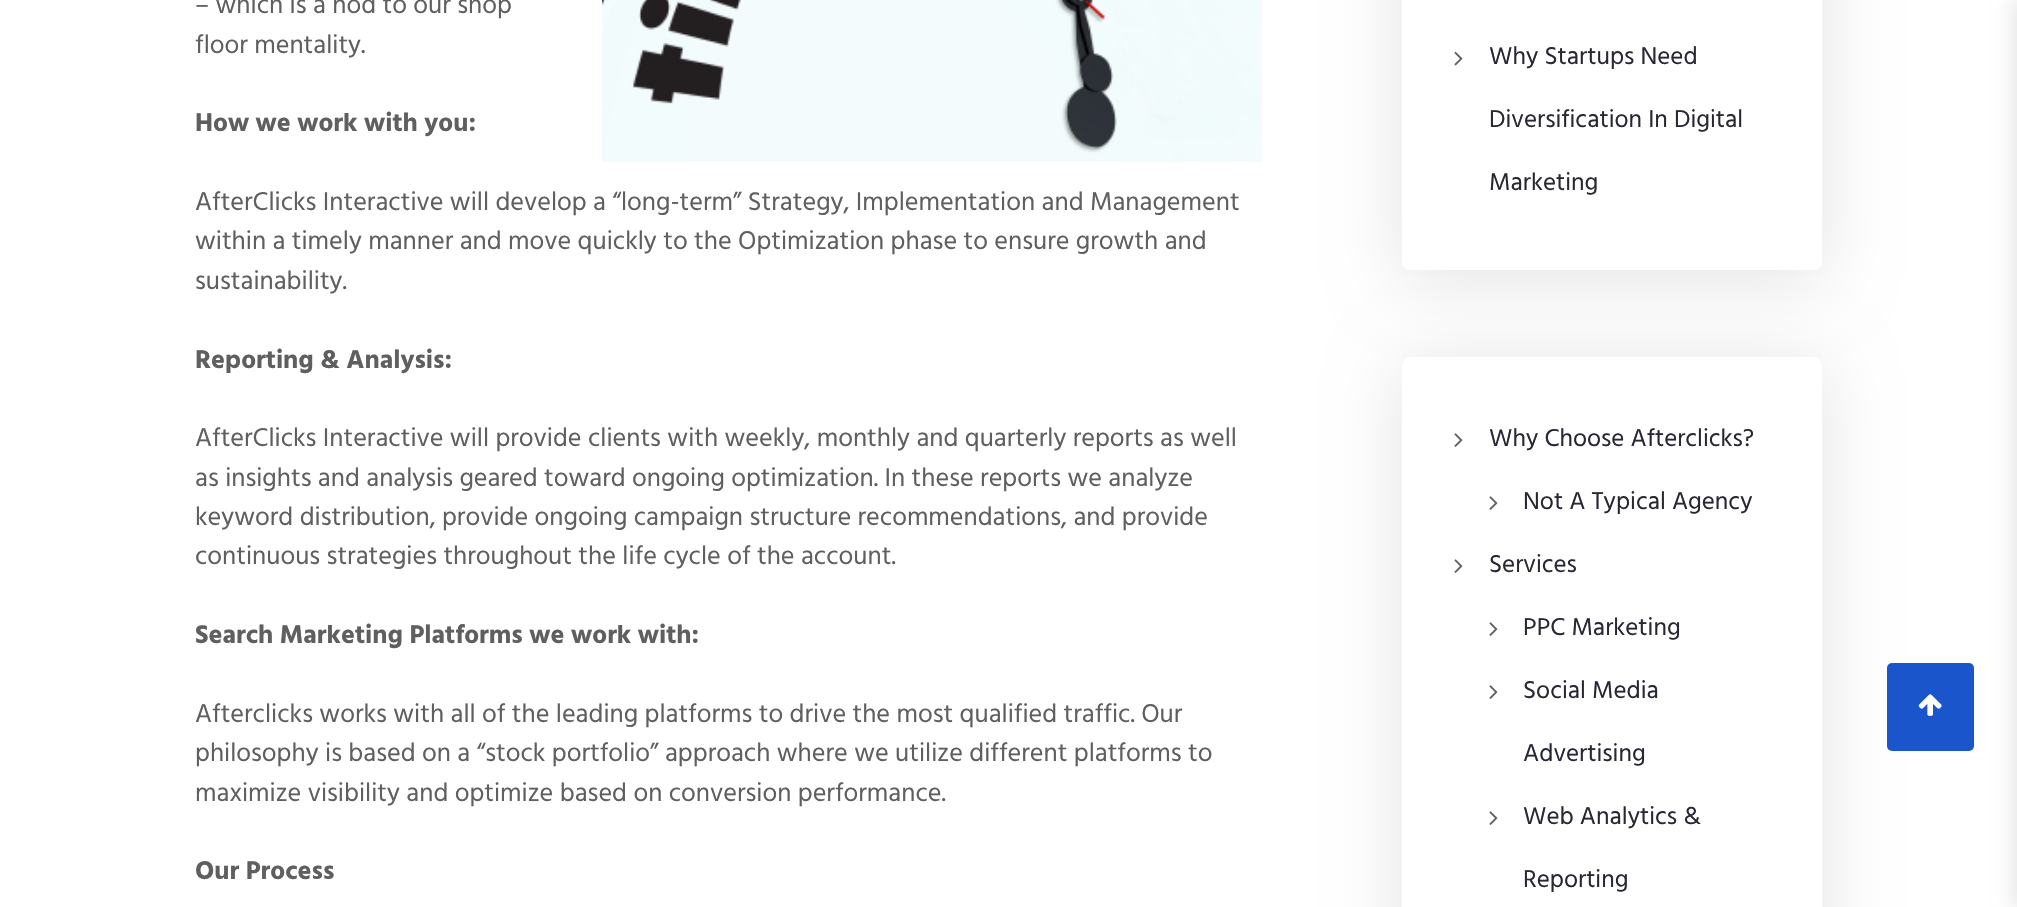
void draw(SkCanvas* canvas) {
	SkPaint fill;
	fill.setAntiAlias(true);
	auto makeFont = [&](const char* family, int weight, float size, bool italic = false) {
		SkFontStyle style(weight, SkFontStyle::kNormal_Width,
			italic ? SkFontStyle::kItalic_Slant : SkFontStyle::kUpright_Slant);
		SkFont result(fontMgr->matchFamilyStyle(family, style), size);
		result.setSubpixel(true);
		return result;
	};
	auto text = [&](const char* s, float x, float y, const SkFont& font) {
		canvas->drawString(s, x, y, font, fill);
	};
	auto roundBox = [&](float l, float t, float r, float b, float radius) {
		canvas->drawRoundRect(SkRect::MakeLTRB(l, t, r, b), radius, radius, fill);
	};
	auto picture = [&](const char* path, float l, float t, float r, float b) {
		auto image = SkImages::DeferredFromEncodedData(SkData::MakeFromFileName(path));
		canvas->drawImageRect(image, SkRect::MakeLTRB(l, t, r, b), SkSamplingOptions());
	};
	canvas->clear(0xFFFFFFFF);
	picture("image0.png", 602, 0, 1262, 162);
	canvas->save();
	canvas->clipPath(SkPathBuilder(SkPathFillType::kEvenOdd).moveTo(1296, 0).lineTo(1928, 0).lineTo(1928, 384).lineTo(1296, 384).close().moveTo(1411, -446).lineTo(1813, -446).cubicTo(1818, -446, 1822, -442, 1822, -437).lineTo(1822, 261).cubicTo(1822, 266, 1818, 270, 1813, 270).lineTo(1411, 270).cubicTo(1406, 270, 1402, 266, 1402, 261).lineTo(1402, -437).cubicTo(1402, -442, 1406, -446, 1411, -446).close().detach(), true);
	fill.setColor(0x1C000000);
	fill.setMaskFilter(SkMaskFilter::MakeBlur(kNormal_SkBlurStyle, 35));
	canvas->drawRoundRect(SkRect::MakeLTRB(1402, -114, 1822, 278), 9, 9, fill);
	fill.setMaskFilter(nullptr);
	canvas->restore();
	picture("image1.png", 1454, 51, 1463, 66);
	canvas->save();
	canvas->clipPath(SkPathBuilder(SkPathFillType::kEvenOdd).moveTo(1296, 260).lineTo(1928, 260).lineTo(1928, 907).lineTo(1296, 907).close().moveTo(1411, 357).lineTo(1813, 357).cubicTo(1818, 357, 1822, 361, 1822, 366).lineTo(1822, 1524).cubicTo(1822, 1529, 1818, 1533, 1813, 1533).lineTo(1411, 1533).cubicTo(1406, 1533, 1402, 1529, 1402, 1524).lineTo(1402, 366).cubicTo(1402, 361, 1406, 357, 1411, 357).close().detach(), true);
	fill.setMaskFilter(SkMaskFilter::MakeBlur(kNormal_SkBlurStyle, 35));
	canvas->drawRoundRect(SkRect::MakeLTRB(1402, 366, 1822, 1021), 9, 9, fill);
	fill.setMaskFilter(nullptr);
	canvas->restore();
	picture("image2.png", 1454, 433, 1463, 447);
	picture("image2.png", 1489, 496, 1498, 510);
	picture("image2.png", 1454, 559, 1463, 573);
	picture("image2.png", 1489, 622, 1498, 636);
	picture("image2.png", 1489, 685, 1498, 699);
	picture("image2.png", 1489, 811, 1498, 825);
	fill.setColor(0xFF1A55CB);
	roundBox(1887, 663, 1974, 751, 5);
	picture("image3.png", 1918, 694, 1942, 716);
	fill.setColor(0x1C000000);
	fill.setMaskFilter(SkMaskFilter::MakeBlur(kNormal_SkBlurStyle, 10.5f));
	canvas->drawRect(SkRect::MakeLTRB(2014, 0, 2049, 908), fill);
	fill.setMaskFilter(nullptr);
	auto font1 = makeFont("Hind", 400, 26.25f);
	fill.setColor(0xFF5F5F5F);
	text("– which is a nod to our shop", 195, 13, font1);
	text("floor mentality.", 195, 53, font1);
	auto font2 = makeFont("Hind", 700, 26.25f);
	text("How we work with you:", 195, 131, font2);
	text("AfterClicks Interactive will develop a “long-term” Strategy, Implementation and Management", 195, 210, font1);
	text("within a timely manner and move quickly to the Optimization phase to ensure growth and", 195, 249, font1);
	text("sustainability.", 195, 289, font1);
	text("Reporting & Analysis:", 195, 368, font2);
	text("AfterClicks Interactive will provide clients with weekly, monthly and quarterly reports as well", 195, 446, font1);
	text("as insights and analysis geared toward ongoing optimization. In these reports we analyze", 195, 486, font1);
	text("keyword distribution, provide ongoing campaign structure recommendations, and provide", 195, 525, font1);
	text("continuous strategies throughout the life cycle of the account.", 195, 564, font1);
	text("Search Marketing Platforms we work with:", 195, 643, font2);
	text("Afterclicks works with all of the leading platforms to drive the most qualified traffic. Our", 195, 722, font1);
	text("philosophy is based on a “stock portfolio” approach where we utilize different platforms to", 195, 761, font1);
	text("maximize visibility and optimize based on conversion performance.", 195, 801, font1);
	text("Our Process", 195, 879, font2);
	auto font3 = makeFont("Hind", 400, 25);
	fill.setColor(0xFF282835);
	text("Why Startups Need", 1489, 64, font3);
	text("Diversification In Digital", 1489, 127, font3);
	text("Marketing", 1489, 190, font3);
	text("Why Choose Afterclicks?", 1489, 446, font3);
	text("Not A Typical Agency", 1523, 509, font3);
	text("Services", 1489, 572, font3);
	text("PPC Marketing", 1523, 635, font3);
	text("Social Media", 1523, 698, font3);
	text("Advertising", 1523, 761, font3);
	text("Web Analytics &", 1523, 824, font3);
	text("Reporting", 1523, 887, font3);
}
